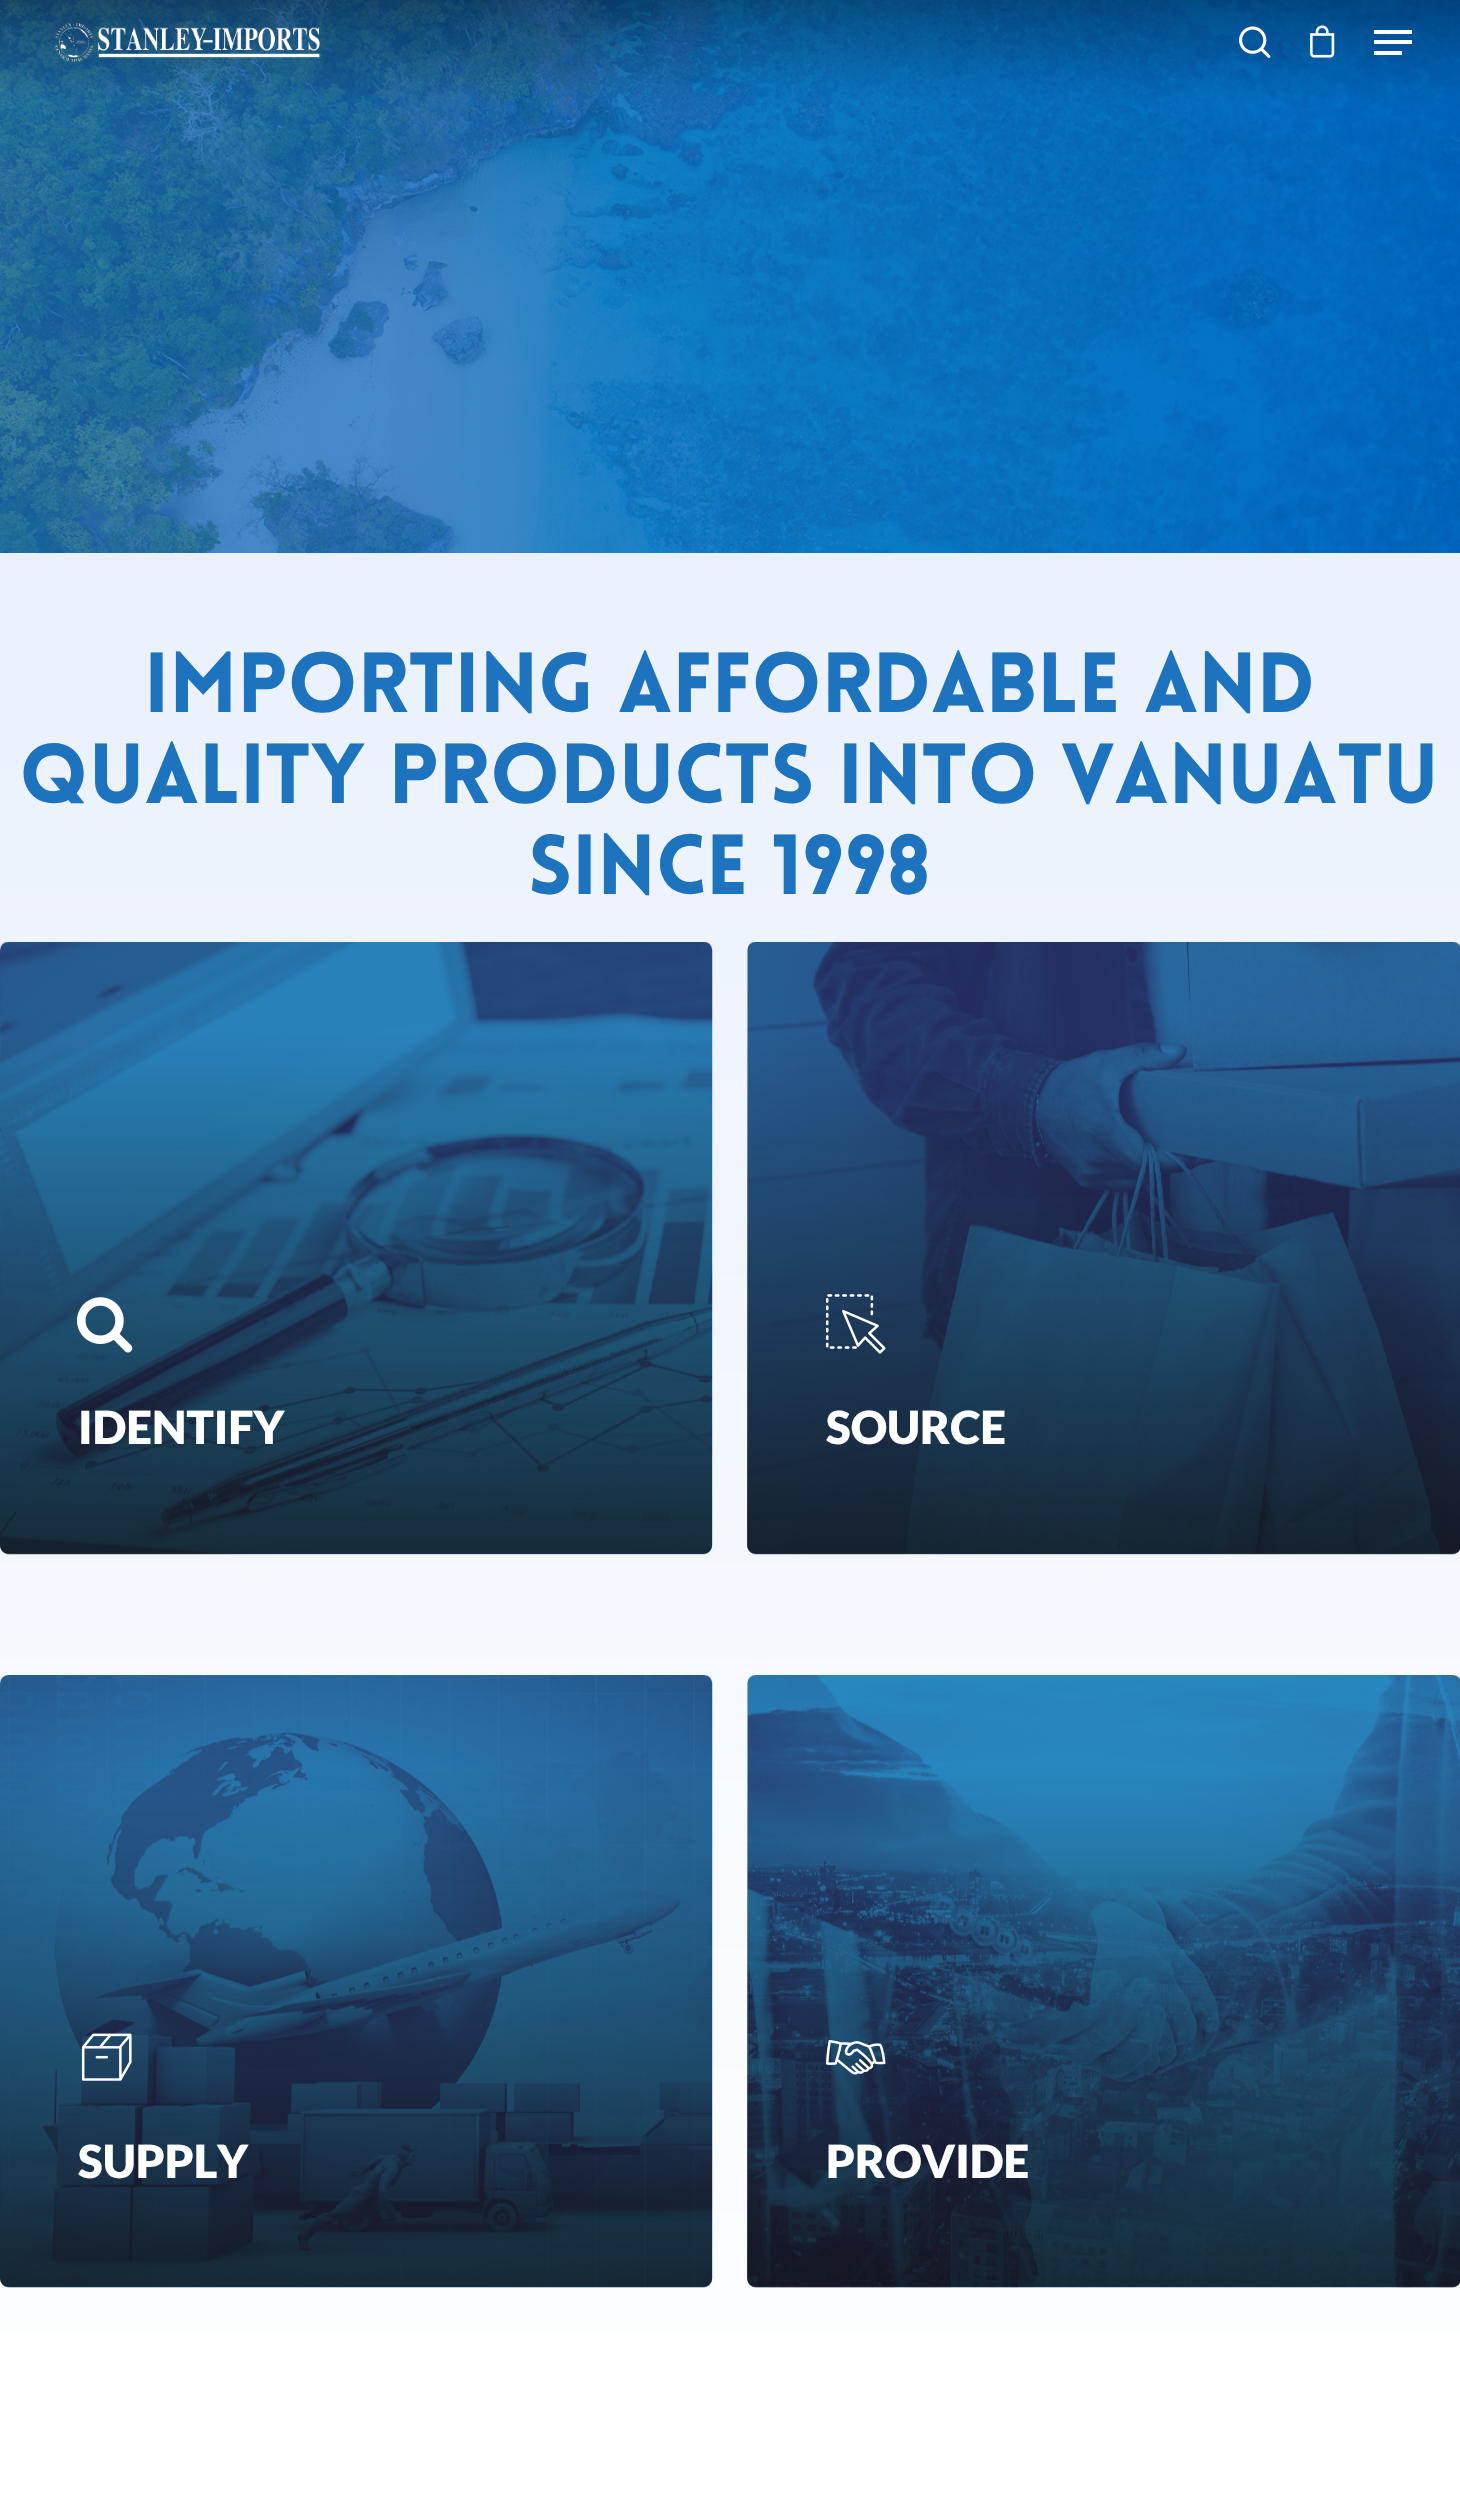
void draw(SkCanvas* canvas) {
	SkPaint fill;
	fill.setAntiAlias(true);
	auto makeFont = [&](const char* family, int weight, float size, bool italic = false) {
		SkFontStyle style(weight, SkFontStyle::kNormal_Width,
			italic ? SkFontStyle::kItalic_Slant : SkFontStyle::kUpright_Slant);
		SkFont result(fontMgr->matchFamilyStyle(family, style), size);
		result.setSubpixel(true);
		return result;
	};
	auto text = [&](const char* s, float x, float y, const SkFont& font) {
		canvas->drawString(s, x, y, font, fill);
	};
	auto box = [&](float l, float t, float r, float b) {
		canvas->drawRect(SkRect::MakeLTRB(l, t, r, b), fill);
	};
	auto picture = [&](const char* path, float l, float t, float r, float b) {
		auto image = SkImages::DeferredFromEncodedData(SkData::MakeFromFileName(path));
		canvas->drawImageRect(image, SkRect::MakeLTRB(l, t, r, b), SkSamplingOptions());
	};
	canvas->clear(0xFFFFFFFF);
	picture("image3.png", 0, 0, 1460, 553);
	picture("image0.png", 55, 22, 320, 63);
	picture("image1.png", 1239, 26, 1271, 58);
	picture("image2.png", 1310, 25, 1335, 58);
	fill.setColor(0xFFFFFFFF);
	box(1374, 30, 1412, 34);
	box(1374, 51, 1402, 55);
	box(1374, 40, 1412, 44);
	{
		const SkColor colors[] = {0xFFEAF1FD, 0xFFFFFFFF};
		const float stops[] = {0, 1};
		const SkPoint ends[] = {{731, 553}, {731, 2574}};
		fill.setShader(SkGradientShader::MakeLinear(ends, colors, stops, 2, SkTileMode::kClamp));
		fill.setAlpha(255);
	}
	box(0, 553, 1460, 2333);
	picture("image4.png", 0, 942, 713, 1555);
	{
		const SkColor colors[] = {0x000F0F0F, 0xBF0F0F0F};
		const float stops[] = {0, 1};
		const SkPoint ends[] = {{357, 1034}, {357, 1556}};
		fill.setShader(SkGradientShader::MakeLinear(ends, colors, stops, 2, SkTileMode::kClamp));
		fill.setAlpha(255);
	}
	canvas->drawPath(SkPathBuilder().moveTo(0, 1034).lineTo(712, 1034).lineTo(712, 1545).cubicTo(712, 1550, 708, 1554, 703, 1554).lineTo(9, 1554).cubicTo(4, 1554, 0, 1550, 0, 1545).close().detach(), fill);
	picture("image5.png", 77, 1297, 133, 1353);
	picture("image6.png", 747, 942, 1460, 1555);
	{
		const SkColor colors[] = {0x000F0F0F, 0xBF0F0F0F};
		const float stops[] = {0, 1};
		const SkPoint ends[] = {{1104, 1034}, {1104, 1556}};
		fill.setShader(SkGradientShader::MakeLinear(ends, colors, stops, 2, SkTileMode::kClamp));
		fill.setAlpha(255);
	}
	canvas->drawPath(SkPathBuilder().moveTo(747, 1034).lineTo(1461, 1034).lineTo(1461, 1545).cubicTo(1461, 1550, 1457, 1554, 1452, 1554).lineTo(756, 1554).cubicTo(751, 1554, 747, 1550, 747, 1545).close().detach(), fill);
	picture("image7.png", 826, 1294, 886, 1354);
	picture("image8.png", 0, 1675, 713, 2288);
	{
		const SkColor colors[] = {0x000F0F0F, 0xBF0F0F0F};
		const float stops[] = {0, 1};
		const SkPoint ends[] = {{357, 1768}, {357, 2289}};
		fill.setShader(SkGradientShader::MakeLinear(ends, colors, stops, 2, SkTileMode::kClamp));
		fill.setAlpha(255);
	}
	canvas->drawPath(SkPathBuilder().moveTo(0, 1768).lineTo(712, 1768).lineTo(712, 2278).cubicTo(712, 2283, 708, 2287, 703, 2287).lineTo(9, 2287).cubicTo(4, 2287, 0, 2283, 0, 2278).close().detach(), fill);
	picture("image9.png", 81, 2033, 132, 2081);
	picture("image10.png", 747, 1675, 1460, 2288);
	{
		const SkColor colors[] = {0x000F0F0F, 0xBF0F0F0F};
		const float stops[] = {0, 1};
		const SkPoint ends[] = {{1104, 1768}, {1104, 2289}};
		fill.setShader(SkGradientShader::MakeLinear(ends, colors, stops, 2, SkTileMode::kClamp));
		fill.setAlpha(255);
	}
	canvas->drawPath(SkPathBuilder().moveTo(747, 1768).lineTo(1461, 1768).lineTo(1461, 2278).cubicTo(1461, 2283, 1457, 2287, 1452, 2287).lineTo(756, 2287).cubicTo(751, 2287, 747, 2283, 747, 2278).close().detach(), fill);
	picture("image11.png", 826, 2040, 886, 2075);
	auto font1 = makeFont("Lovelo", 900, 83.25f);
	fill.setShader(nullptr);
	fill.setColor(0xFF1E73BE);
	text("Importing affordable and", 144, 712, font1);
	text("quality products into Vanuatu", 19, 803, font1);
	text("since 1998", 528, 894, font1);
	auto font2 = makeFont("Lato", 900, 45.5f);
	fill.setColor(0xFFFFFFFF);
	text("IDENTIFY", 78, 1444, font2);
	text("SOURCE", 826, 1444, font2);
	text("SUPPLY", 78, 2178, font2);
	text("PROVIDE", 826, 2178, font2);
}
